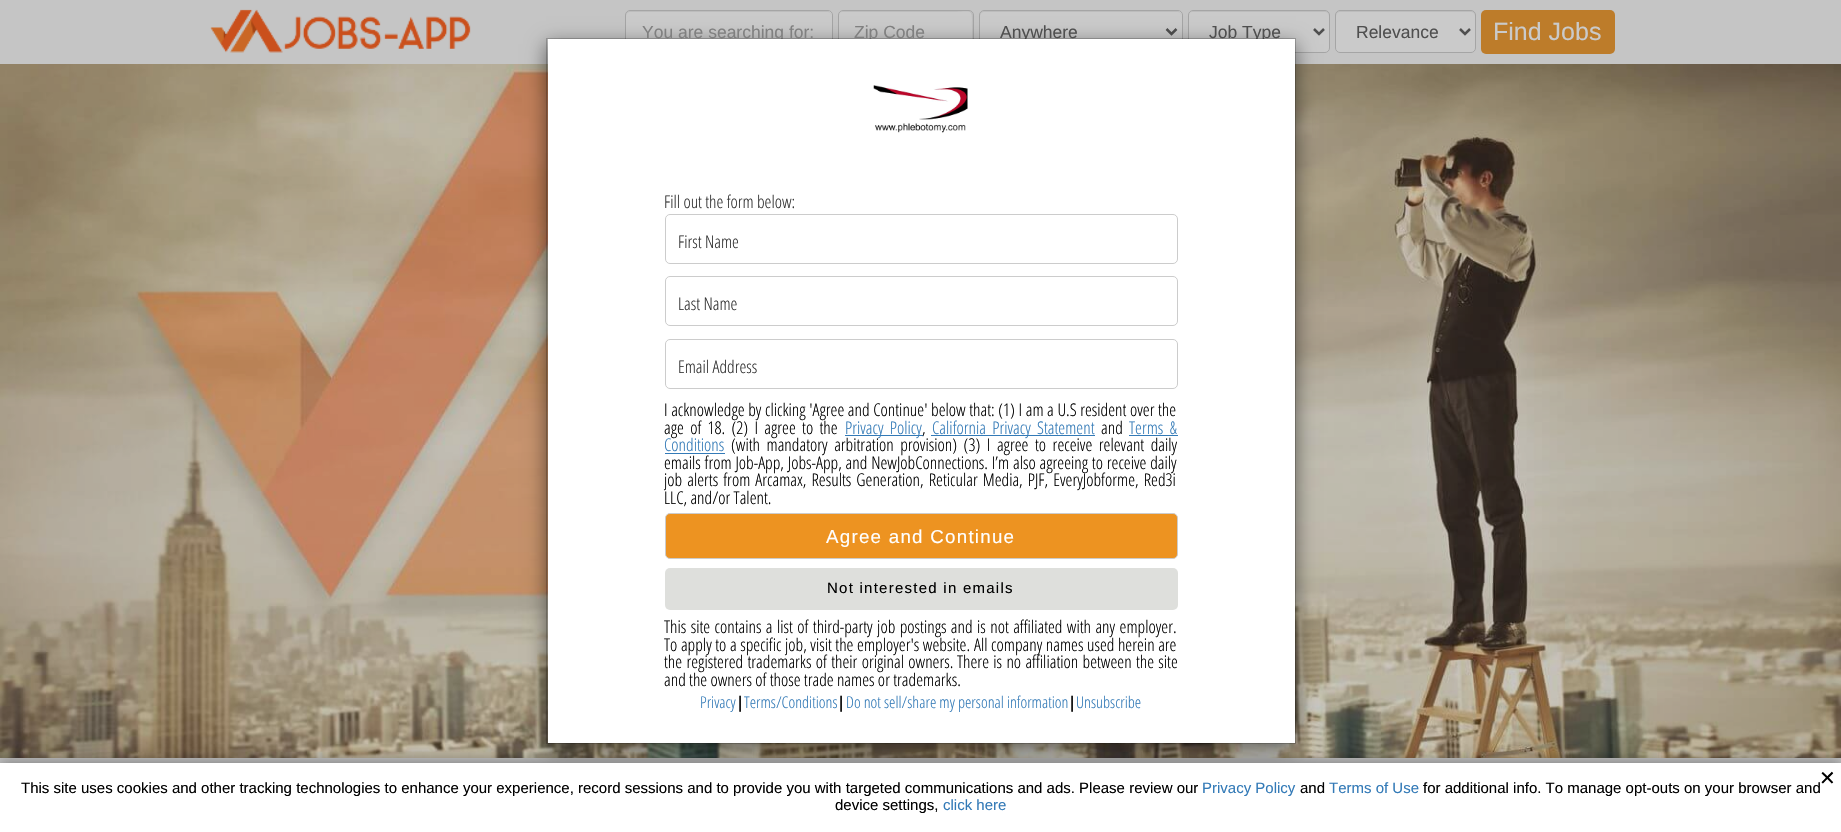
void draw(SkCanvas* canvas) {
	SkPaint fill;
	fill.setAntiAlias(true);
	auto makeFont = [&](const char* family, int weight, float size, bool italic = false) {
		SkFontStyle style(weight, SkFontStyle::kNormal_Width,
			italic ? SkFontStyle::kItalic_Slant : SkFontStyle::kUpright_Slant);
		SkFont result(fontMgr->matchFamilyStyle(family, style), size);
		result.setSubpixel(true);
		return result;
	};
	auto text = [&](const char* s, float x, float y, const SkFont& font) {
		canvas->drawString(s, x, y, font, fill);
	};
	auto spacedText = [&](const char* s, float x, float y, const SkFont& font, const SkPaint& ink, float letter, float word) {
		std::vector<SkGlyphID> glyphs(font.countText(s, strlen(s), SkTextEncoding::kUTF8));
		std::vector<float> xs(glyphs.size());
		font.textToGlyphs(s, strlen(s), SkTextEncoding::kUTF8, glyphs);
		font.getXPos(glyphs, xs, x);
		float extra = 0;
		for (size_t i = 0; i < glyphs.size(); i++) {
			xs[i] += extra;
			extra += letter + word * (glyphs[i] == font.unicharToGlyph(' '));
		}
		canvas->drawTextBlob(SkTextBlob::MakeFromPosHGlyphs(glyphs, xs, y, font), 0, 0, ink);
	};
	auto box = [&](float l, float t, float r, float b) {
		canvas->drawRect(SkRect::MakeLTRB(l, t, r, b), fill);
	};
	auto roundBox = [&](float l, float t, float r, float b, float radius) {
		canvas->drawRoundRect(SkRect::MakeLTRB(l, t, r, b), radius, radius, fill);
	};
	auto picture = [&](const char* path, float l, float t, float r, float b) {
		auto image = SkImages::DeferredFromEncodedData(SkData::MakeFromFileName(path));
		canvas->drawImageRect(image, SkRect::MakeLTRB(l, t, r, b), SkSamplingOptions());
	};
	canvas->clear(0xFFFFFFFF);
	picture("image0.png", 0, 64, 1841, 758);
	fill.setColor(0xFFC5C5C5);
	box(0, 0, 1841, 64);
	picture("image1.png", 210, 9, 471, 53);
	fill.setColor(0xFFCACACA);
	roundBox(625, 10, 833, 53, 5);
	fill.setColor(0xFFBCBCBC);
	canvas->drawPath(SkPathBuilder().moveTo(630, 12).lineTo(828, 12).cubicTo(830, 12, 831, 14, 831, 16).lineTo(831, 15).cubicTo(831, 13, 829, 11, 827, 11).lineTo(630, 11).cubicTo(628, 11, 626, 13, 626, 15).lineTo(626, 16).cubicTo(626, 14, 628, 12, 630, 12).close().detach(), fill);
	fill.setStyle(SkPaint::kStroke_Style);
	fill.setStrokeWidth(1);
	fill.setColor(0xFFA5A5A5);
	canvas->drawRoundRect(SkRect::MakeLTRB(625.5f, 10.5f, 832.5f, 52.5f), 4.5f, 4.5f, fill);
	fill.setStyle(SkPaint::kFill_Style);
	fill.setColor(0xFFCACACA);
	roundBox(838, 10, 974, 53, 5);
	fill.setColor(0xFFBCBCBC);
	canvas->drawPath(SkPathBuilder().moveTo(842, 12).lineTo(948, 12).cubicTo(974, 12, 972, 7, 972, 27).lineTo(972, 50).cubicTo(973, 49, 973, 48, 973, 47).lineTo(973, 15).cubicTo(973, 13, 971, 11, 969, 11).lineTo(843, 11).cubicTo(841, 11, 839, 13, 839, 15).lineTo(839, 16).cubicTo(839, 14, 840, 12, 842, 12).close().detach(), fill);
	fill.setStyle(SkPaint::kStroke_Style);
	fill.setColor(0xFFA5A5A5);
	canvas->drawRoundRect(SkRect::MakeLTRB(838.5f, 10.5f, 973.5f, 52.5f), 4.5f, 4.5f, fill);
	fill.setStyle(SkPaint::kFill_Style);
	fill.setColor(0xFFCACACA);
	roundBox(979, 10, 1183, 53, 5);
	fill.setColor(0xFFBCBCBC);
	canvas->drawPath(SkPathBuilder().moveTo(984, 12).lineTo(1178, 12).cubicTo(1180, 12, 1181, 14, 1181, 16).lineTo(1181, 15).cubicTo(1181, 13, 1179, 11, 1177, 11).lineTo(984, 11).cubicTo(982, 11, 980, 13, 980, 15).lineTo(980, 16).cubicTo(980, 14, 982, 12, 984, 12).close().detach(), fill);
	fill.setStyle(SkPaint::kStroke_Style);
	fill.setColor(0xFFA5A5A5);
	canvas->drawRoundRect(SkRect::MakeLTRB(979.5f, 10.5f, 1182.5f, 52.5f), 4.5f, 4.5f, fill);
	fill.setStrokeWidth(2.5f);
	fill.setColor(0xFF4F4F4F);
	canvas->drawPath(SkPathBuilder().moveTo(1166.5f, 29).lineTo(1171.5f, 34).lineTo(1176.5f, 29).detach(), fill);
	fill.setStyle(SkPaint::kFill_Style);
	fill.setColor(0xFFCACACA);
	roundBox(1188, 10, 1330, 53, 5);
	fill.setColor(0xFFBCBCBC);
	canvas->drawPath(SkPathBuilder().moveTo(1192, 12).lineTo(1325, 12).cubicTo(1327, 12, 1329, 14, 1329, 16).lineTo(1329, 15).cubicTo(1329, 13, 1327, 11, 1325, 11).lineTo(1193, 11).cubicTo(1191, 11, 1189, 13, 1189, 15).lineTo(1189, 16).cubicTo(1189, 14, 1190, 12, 1192, 12).close().detach(), fill);
	fill.setStyle(SkPaint::kStroke_Style);
	fill.setStrokeWidth(1);
	fill.setColor(0xFFA5A5A5);
	canvas->drawRoundRect(SkRect::MakeLTRB(1188.5f, 10.5f, 1329.5f, 52.5f), 4.5f, 4.5f, fill);
	fill.setStrokeWidth(2.5f);
	fill.setColor(0xFF4F4F4F);
	canvas->drawPath(SkPathBuilder().moveTo(1314, 29).lineTo(1319, 34).lineTo(1324, 29).detach(), fill);
	fill.setStyle(SkPaint::kFill_Style);
	fill.setColor(0xFFCACACA);
	roundBox(1335, 10, 1476, 53, 5);
	fill.setColor(0xFFBCBCBC);
	canvas->drawPath(SkPathBuilder().moveTo(1340, 12).lineTo(1471, 12).cubicTo(1473, 12, 1475, 14, 1475, 16).lineTo(1475, 15).cubicTo(1475, 13, 1473, 11, 1471, 11).lineTo(1340, 11).cubicTo(1338, 11, 1336, 13, 1336, 15).lineTo(1336, 16).cubicTo(1336, 14, 1338, 12, 1340, 12).close().detach(), fill);
	fill.setStyle(SkPaint::kStroke_Style);
	fill.setStrokeWidth(1);
	fill.setColor(0xFFA5A5A5);
	canvas->drawRoundRect(SkRect::MakeLTRB(1335.5f, 10.5f, 1475.5f, 52.5f), 4.5f, 4.5f, fill);
	fill.setStrokeWidth(2.5f);
	fill.setColor(0xFF4F4F4F);
	canvas->drawPath(SkPathBuilder().moveTo(1460, 29).lineTo(1465, 34).lineTo(1470, 29).detach(), fill);
	fill.setStyle(SkPaint::kFill_Style);
	fill.setColor(0xFFBD7C2A);
	roundBox(1481, 10, 1615, 54, 5);
	fill.setColor(0xFFC3C3C3);
	box(0, 758, 1841, 763);
	fill.setColor(0x80000000);
	fill.setMaskFilter(SkMaskFilter::MakeBlur(kNormal_SkBlurStyle, 9.5f));
	canvas->drawRect(SkRect::MakeLTRB(546, 44, 1296, 750), fill);
	fill.setMaskFilter(nullptr);
	auto font1 = makeFont("Liberation Sans", 400, 17.5f);
	fill.setColor(0xFF808080);
	text("You are searching for:", 642, 38, font1);
	text("Zip Code", 854, 38, font1);
	fill.setColor(0xFF4F4F4F);
	text("Anywhere", 1000, 38, font1);
	text("Job Type", 1209, 38, font1);
	text("Relevance", 1356, 38, font1);
	auto font2 = makeFont("Liberation Sans", 400, 25);
	fill.setColor(0xFFCACACA);
	text("Find Jobs", 1493, 40, font2);
	fill.setColor(0xFFFFFFFF);
	box(548, 39, 1295, 743);
	fill.setStyle(SkPaint::kStroke_Style);
	fill.setStrokeWidth(1);
	fill.setColor(0x33000000);
	canvas->drawRect(SkRect::MakeLTRB(546.5f, 38.5f, 1295.5f, 743.5f), fill);
	picture("image2.png", 873, 85, 968, 133);
	auto font3 = makeFont("Open Sans Condensed", 300, 17.5f);
	fill.setStyle(SkPaint::kFill_Style);
	fill.setColor(0xFF333333);
	text("Fill out the form below:", 664, 208, font3);
	fill.setStyle(SkPaint::kStroke_Style);
	fill.setColor(0xFFCCCCCC);
	canvas->drawRoundRect(SkRect::MakeLTRB(665.5f, 214.5f, 1177.5f, 263.5f), 4.5f, 4.5f, fill);
	fill.setStyle(SkPaint::kFill_Style);
	fill.setColor(0xFF333333);
	text("First Name", 678, 248, font3);
	fill.setStyle(SkPaint::kStroke_Style);
	fill.setColor(0xFFCCCCCC);
	canvas->drawRoundRect(SkRect::MakeLTRB(665.5f, 276.5f, 1177.5f, 325.5f), 4.5f, 4.5f, fill);
	fill.setStyle(SkPaint::kFill_Style);
	fill.setColor(0xFF333333);
	text("Last Name", 678, 310, font3);
	fill.setStyle(SkPaint::kStroke_Style);
	fill.setColor(0xFFCCCCCC);
	canvas->drawRoundRect(SkRect::MakeLTRB(665.5f, 339.5f, 1177.5f, 388.5f), 4.5f, 4.5f, fill);
	fill.setStyle(SkPaint::kFill_Style);
	fill.setColor(0xFF333333);
	text("Email Address", 678, 373, font3);
	fill.setColor(0xFF000000);
	spacedText("I acknowledge by clicking 'Agree and Continue' below that: (1) I am a U.S resident over the", 664, 416, font3, fill, 0, 0.3f);
	spacedText("age of 18. (2) I agree to the", 664, 434, font3, fill, 0, 3);
	fill.setColor(0xFF337AB7);
	box(845, 435, 923, 436);
	fill.setColor(0xFF000000);
	text(",", 922, 434, font3);
	fill.setColor(0xFF337AB7);
	spacedText("Privacy Policy", 845, 434, font3, fill, 0, 3);
	box(931, 435, 1095, 436);
	spacedText("California Privacy Statement", 932, 434, font3, fill, 0, 3);
	fill.setColor(0xFF000000);
	text("and", 1101, 434, font3);
	fill.setColor(0xFF337AB7);
	spacedText("Terms &", 1129, 434, font3, fill, 0, 3);
	box(1129, 435, 1178, 436);
	text("Conditions", 664, 451, font3);
	box(665, 453, 725, 454);
	fill.setColor(0xFF000000);
	spacedText("(with mandatory arbitration provision) (3) I agree to receive relevant daily", 731, 451, font3, fill, 0, 3.25f);
	spacedText("emails from Job-App, Jobs-App, and NewJobConnections. I’m also agreeing to receive daily", 664, 469, font3, fill, 0, 0.5f);
	spacedText("job alerts from Arcamax, Results Generation, Reticular Media, PJF, EveryJobforme, Red3i", 664, 486, font3, fill, 0, 1.75f);
	text("LLC, and/or Talent.", 664, 504, font3);
	fill.setColor(0xFFED9321);
	canvas->drawRoundRect(SkRect::MakeLTRB(665.5f, 513.5f, 1177.5f, 558.5f), 4.5f, 4.5f, fill);
	fill.setStyle(SkPaint::kStroke_Style);
	fill.setColor(0xFFCCCCCC);
	canvas->drawRoundRect(SkRect::MakeLTRB(665.5f, 513.5f, 1177.5f, 558.5f), 4.5f, 4.5f, fill);
	auto font4 = makeFont("Liberation Sans", 400, 18.75f);
	fill.setStyle(SkPaint::kFill_Style);
	fill.setColor(0xFFFFFFFF);
	spacedText("Agree and Continue", 826, 543, font4, fill, 1.25f, 0);
	fill.setColor(0xFFDEDFDC);
	roundBox(665, 568, 1178, 610, 5);
	auto font5 = makeFont("Liberation Sans", 400, 15);
	fill.setColor(0xFF000000);
	spacedText("Not interested in emails", 827, 593, font5, fill, 1.25f, 0);
	spacedText("This site contains a list of third-party job postings and is not affiliated with any employer.", 664, 633, font3, fill, 0, 1.1f);
	spacedText("To apply to a specific job, visit the employer's website.", 664, 651, font3, fill, 0, 0.25f);
	spacedText("All company names used herein are", 974, 651, font3, fill, 0, 0.25f);
	spacedText("the registered trademarks of their original owners.", 664, 668, font3, fill, 0, 1);
	spacedText("There is no affiliation between the site", 957, 668, font3, fill, 0, 1);
	text("and the owners of those trade names or trademarks.", 664, 686, font3);
	auto font6 = makeFont("Open Sans Condensed", 300, 16.25f);
	fill.setColor(0xFF337AB7);
	text("Privacy", 700, 708, font6);
	auto font7 = makeFont("Open Sans Condensed", 700, 16.25f);
	fill.setColor(0xFF111111);
	text("|", 736, 708, font7);
	fill.setColor(0xFF337AB7);
	text("Terms/Conditions", 744, 708, font6);
	fill.setColor(0xFF111111);
	text("|", 837, 708, font7);
	fill.setColor(0xFF337AB7);
	text("Do not sell/share my personal information", 846, 708, font6);
	fill.setColor(0xFF111111);
	text("|", 1068, 708, font7);
	fill.setColor(0xFF337AB7);
	text("Unsubscribe", 1076, 708, font6);
	fill.setColor(0x4D000000);
	fill.setMaskFilter(SkMaskFilter::MakeBlur(kNormal_SkBlurStyle, 6));
	canvas->drawRect(SkRect::MakeLTRB(0, 760, 1841, 830), fill);
	fill.setMaskFilter(nullptr);
	fill.setColor(0xFFFFFFFF);
	box(0, 763, 1841, 832);
	auto font8 = makeFont("DejaVu Sans", 400, 20);
	fill.setColor(0xFF000000);
	text("✕", 1819, 785, font8);
	text("This site uses cookies and other tracking technologies to enhance your experience, record sessions and to provide you with targeted communications and ads. Please review our", 21, 793, font5);
	fill.setColor(0xFF337AB7);
	text("Privacy Policy", 1202, 793, font5);
	fill.setColor(0xFF000000);
	text("and", 1300, 793, font5);
	fill.setColor(0xFF337AB7);
	text("Terms of Use", 1329, 793, font5);
	fill.setColor(0xFF000000);
	text("for additional info. To manage opt-outs on your browser and", 1423, 793, font5);
	text("device settings,", 835, 810, font5);
	fill.setColor(0xFF337AB7);
	text("click here", 943, 810, font5);
}
